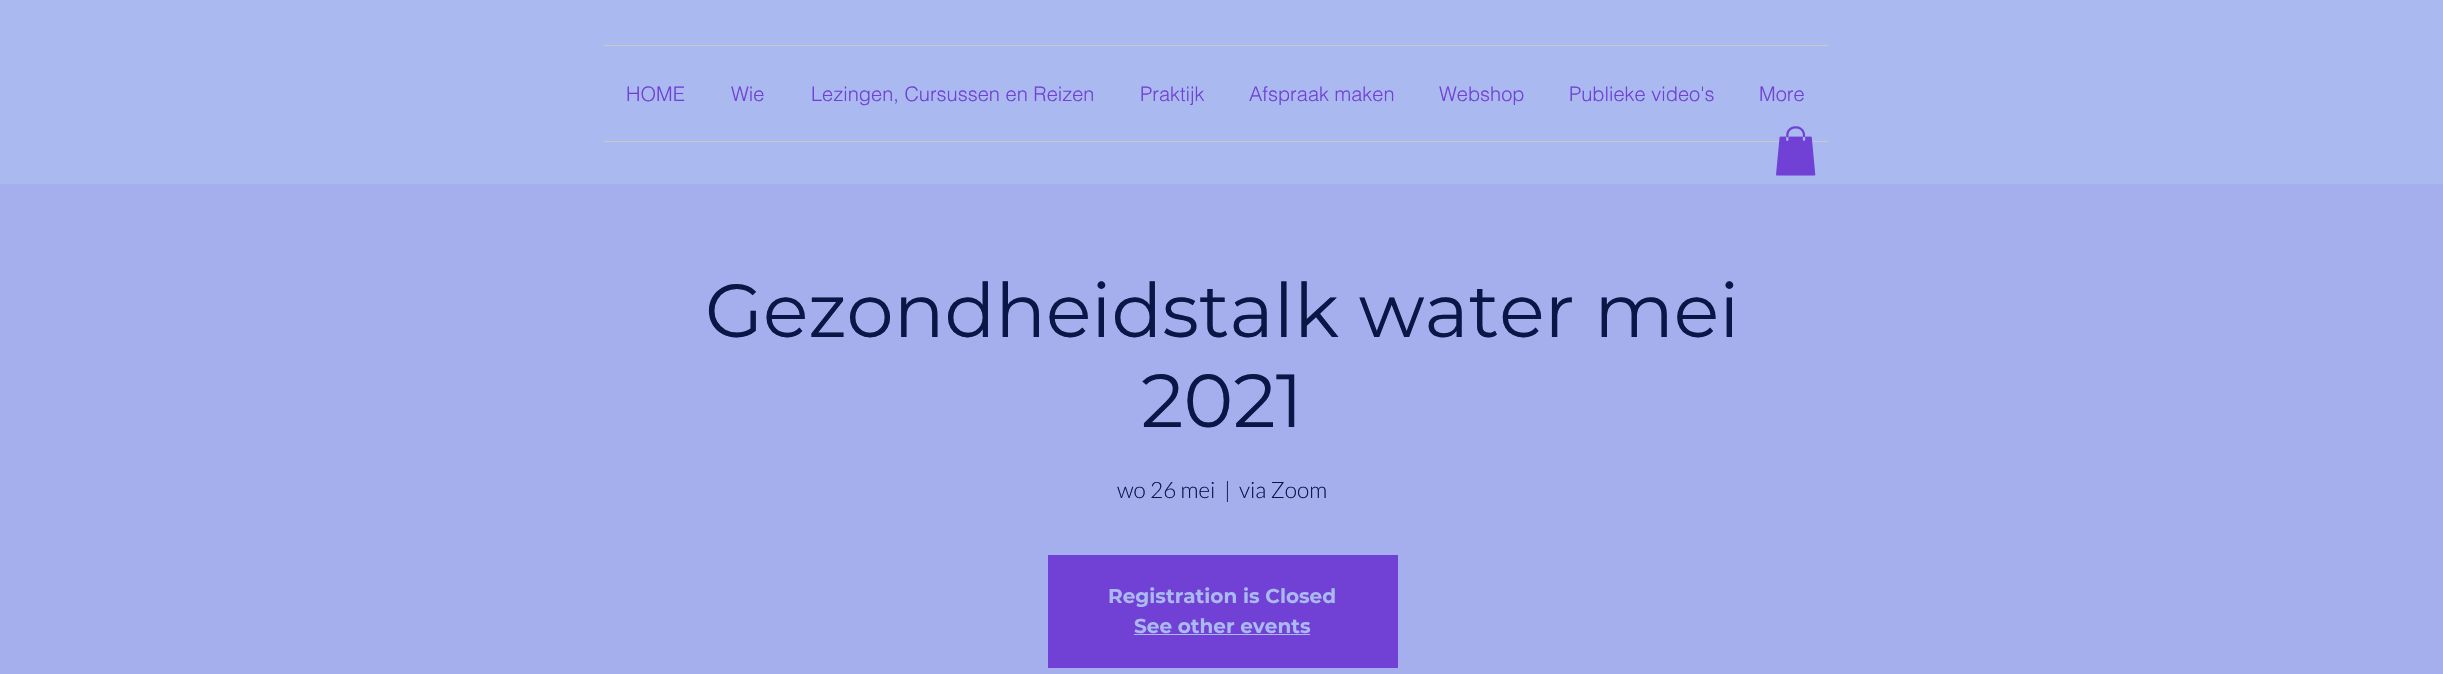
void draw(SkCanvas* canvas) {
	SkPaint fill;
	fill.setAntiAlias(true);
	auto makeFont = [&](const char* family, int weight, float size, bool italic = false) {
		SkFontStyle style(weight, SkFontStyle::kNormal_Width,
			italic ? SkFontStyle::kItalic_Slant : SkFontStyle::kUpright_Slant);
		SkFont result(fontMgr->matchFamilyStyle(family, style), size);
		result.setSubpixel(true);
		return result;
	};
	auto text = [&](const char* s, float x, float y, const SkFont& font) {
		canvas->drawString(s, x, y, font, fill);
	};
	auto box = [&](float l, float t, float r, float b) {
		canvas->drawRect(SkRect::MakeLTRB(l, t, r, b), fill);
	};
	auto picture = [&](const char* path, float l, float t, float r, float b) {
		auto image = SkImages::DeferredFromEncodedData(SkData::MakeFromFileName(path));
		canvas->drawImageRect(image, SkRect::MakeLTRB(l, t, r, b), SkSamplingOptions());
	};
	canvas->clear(0xFFAABAF1);
	fill.setColor(0xFFCACACA);
	box(604, 45, 1828, 46);
	box(604, 141, 1828, 142);
	picture("image0.png", 1776, 126, 1816, 176);
	fill.setColor(0xFFA5AFEE);
	box(0, 184, 2443, 674);
	fill.setColor(0xFF7141D5);
	box(1048, 555, 1398, 668);
	fill.setColor(0xFFAABAF1);
	box(1134, 634, 1310, 635);
	auto font1 = makeFont("helvetica", 300, 20);
	fill.setColor(0xFF7141D5);
	text("HOME", 626, 101, font1);
	text("Wie", 731, 101, font1);
	text("Lezingen, Cursussen en Reizen", 811, 101, font1);
	text("Praktijk", 1140, 101, font1);
	text("Afspraak maken", 1249, 101, font1);
	text("Webshop", 1439, 101, font1);
	text("Publieke video's", 1569, 101, font1);
	text("More", 1759, 101, font1);
	auto font2 = makeFont("Montserrat", 400, 75);
	fill.setColor(0xFF091747);
	text("Gezondheidstalk water mei", 705, 337, font2);
	text("2021", 1141, 427, font2);
	auto font3 = makeFont("Lato", 300, 22.5f);
	text("wo 26 mei", 1117, 498, font3);
	text("|", 1224, 498, font3);
	text("via Zoom", 1239, 498, font3);
	auto font4 = makeFont("Montserrat", 700, 20);
	fill.setColor(0xFFAABAF1);
	text("Registration is Closed", 1108, 603, font4);
	text("See other events", 1134, 633, font4);
}
